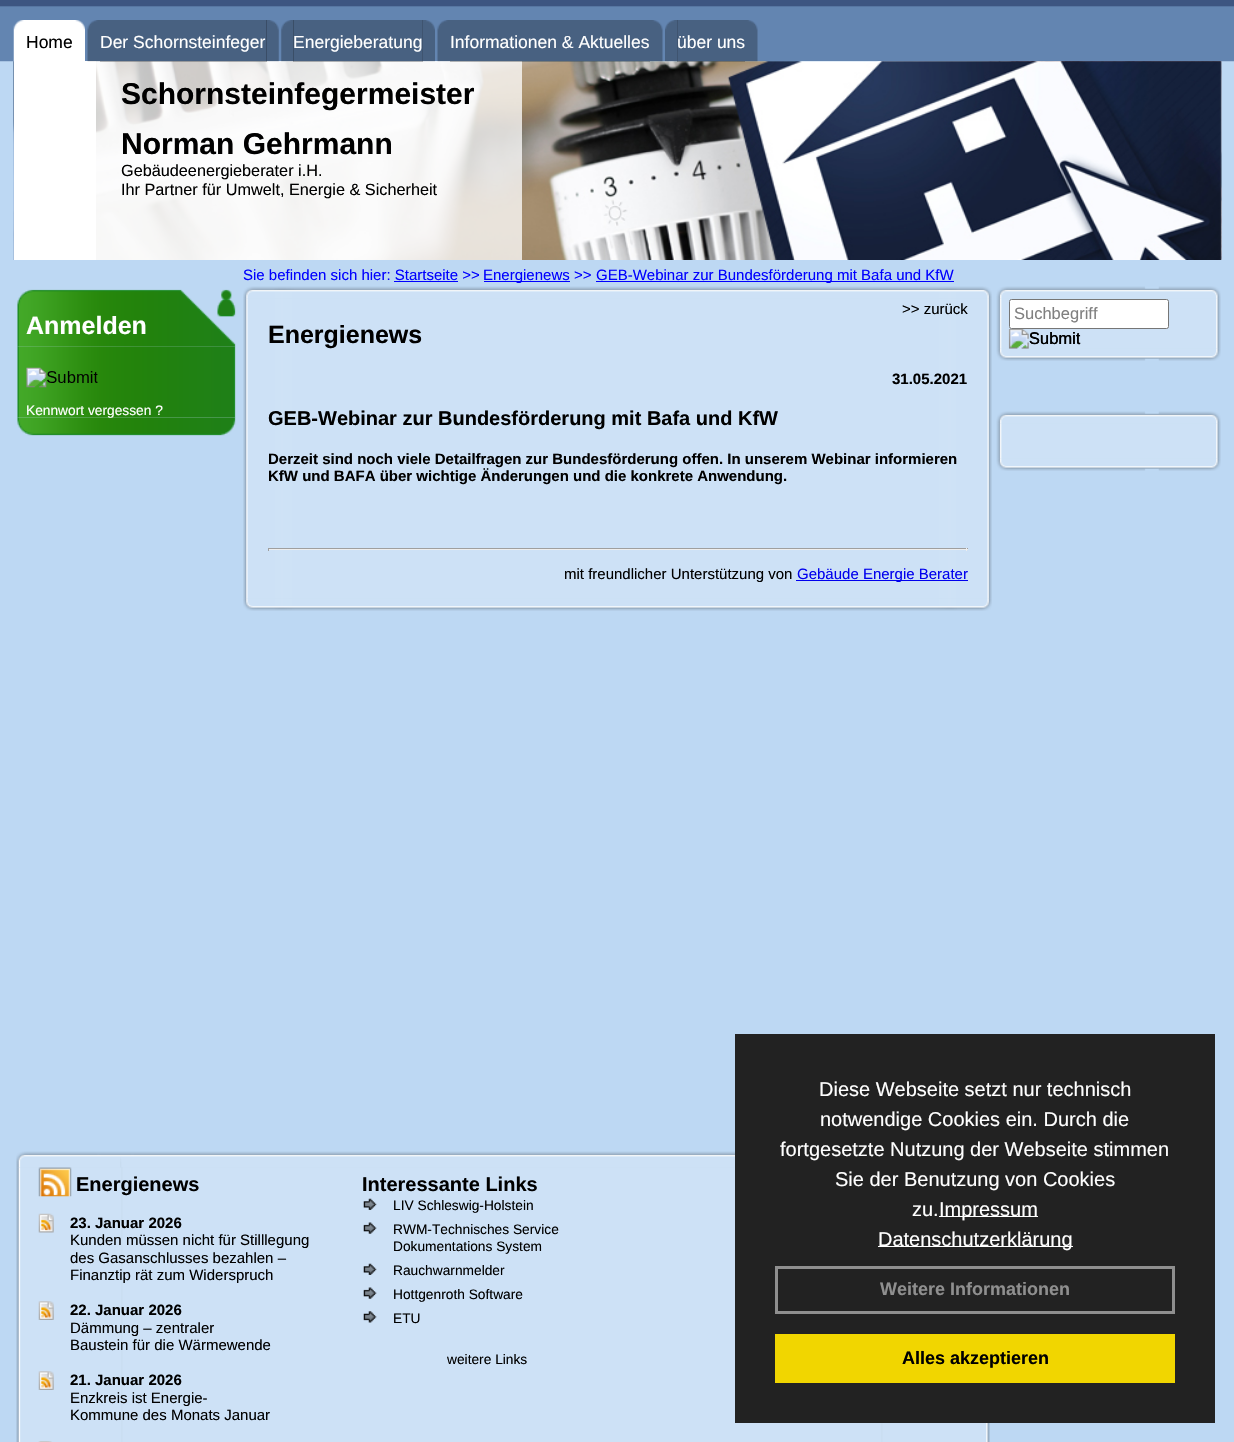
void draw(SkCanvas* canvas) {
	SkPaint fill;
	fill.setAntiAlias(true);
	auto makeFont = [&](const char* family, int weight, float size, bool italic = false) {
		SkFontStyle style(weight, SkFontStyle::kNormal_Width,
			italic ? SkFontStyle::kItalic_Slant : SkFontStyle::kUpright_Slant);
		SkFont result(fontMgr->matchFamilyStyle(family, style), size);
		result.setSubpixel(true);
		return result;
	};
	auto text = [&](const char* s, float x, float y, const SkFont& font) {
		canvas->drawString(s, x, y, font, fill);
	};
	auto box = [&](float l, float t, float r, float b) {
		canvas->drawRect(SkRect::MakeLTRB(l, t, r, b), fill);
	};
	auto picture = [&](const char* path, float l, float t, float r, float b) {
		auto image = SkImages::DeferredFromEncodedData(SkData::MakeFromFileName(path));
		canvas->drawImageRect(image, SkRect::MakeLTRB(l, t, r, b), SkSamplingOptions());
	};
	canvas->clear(0xFFBDD8F3);
	picture("image0.png", 0, 0, 1234, 62);
	picture("image11.png", 13, 61, 1222, 260);
	picture("image12.png", 13, 61, 1222, 260);
	fill.setColor(0xFFFFFFFF);
	box(14, 61, 96, 260);
	picture("image1.png", 13, 20, 27, 62);
	box(26, 20, 73, 61);
	fill.setColor(0xBFFFFFFF);
	box(96, 61, 522, 260);
	picture("image3.png", 87, 20, 100, 62);
	fill.setColor(0x45000000);
	box(100, 20, 267, 62);
	picture("image4.png", 266, 20, 279, 62);
	picture("image5.png", 281, 20, 294, 62);
	box(293, 20, 423, 62);
	picture("image6.png", 422, 20, 435, 62);
	picture("image7.png", 437, 20, 450, 62);
	box(450, 20, 650, 62);
	picture("image8.png", 650, 20, 663, 62);
	picture("image9.png", 665, 20, 678, 62);
	box(677, 20, 745, 62);
	picture("image10.png", 745, 20, 758, 62);
	fill.setColor(0xFF0000FF);
	box(484, 281, 570, 282);
	box(596, 281, 954, 282);
	box(394, 281, 458, 282);
	picture("image13.png", 17, 289, 236, 347);
	picture("image14.png", 17, 346, 236, 418);
	picture("image15.png", 26, 367, 98, 388);
	picture("image16.png", 17, 417, 236, 436);
	picture("image17.png", 243, 286, 992, 299);
	picture("image18.png", 243, 298, 992, 599);
	fill.setColor(0xFF9F9F9F);
	box(268, 548, 968, 549);
	fill.setColor(0xFFEEEEEE);
	box(966, 548, 967, 551);
	box(268, 549, 968, 550);
	fill.setColor(0xFF9F9F9F);
	box(268, 548, 269, 551);
	fill.setColor(0xFF0000EE);
	box(796, 580, 968, 581);
	picture("image19.png", 243, 598, 992, 611);
	picture("image20.png", 996, 286, 1221, 299);
	picture("image21.png", 996, 298, 1221, 349);
	fill.setColor(0xFFFFFFFF);
	canvas->drawRoundRect(SkRect::MakeLTRB(1009.5f, 299.5f, 1168.5f, 328.5f), 2, 2, fill);
	fill.setStyle(SkPaint::kStroke_Style);
	fill.setStrokeWidth(1);
	fill.setColor(0xFF767676);
	canvas->drawRoundRect(SkRect::MakeLTRB(1009.5f, 299.5f, 1168.5f, 328.5f), 2, 2, fill);
	picture("image23.png", 996, 348, 1221, 361);
	picture("image22.png", 1008, 328, 1080, 349);
	picture("image24.png", 996, 411, 1221, 424);
	picture("image25.png", 996, 423, 1221, 459);
	picture("image23.png", 996, 458, 1221, 471);
	picture("image26.png", 16, 1151, 735, 1168);
	picture("image27.png", 16, 1167, 990, 1442);
	picture("image28.png", 38, 1167, 72, 1197);
	picture("image29.png", 38, 1213, 54, 1233);
	picture("image30.png", 38, 1301, 54, 1320);
	picture("image30.png", 38, 1371, 54, 1390);
	picture("image31.png", 38, 1441, 52, 1442);
	picture("image32.png", 363, 1198, 377, 1210);
	picture("image33.png", 363, 1222, 377, 1234);
	picture("image32.png", 363, 1263, 377, 1275);
	picture("image33.png", 363, 1287, 377, 1299);
	picture("image34.png", 363, 1311, 377, 1323);
	fill.setStyle(SkPaint::kFill_Style);
	fill.setColor(0xFF222222);
	box(735, 1034, 1215, 1423);
	fill.setColor(0xFFFFFFFF);
	box(939, 1216, 1038, 1217);
	box(878, 1246, 1073, 1247);
	fill.setStyle(SkPaint::kStroke_Style);
	fill.setStrokeWidth(3);
	fill.setColor(0xFF8F8F8F);
	canvas->drawRect(SkRect::MakeLTRB(776.5f, 1267.5f, 1173.5f, 1312.5f), fill);
	fill.setStyle(SkPaint::kFill_Style);
	fill.setColor(0xFFF1D600);
	box(775, 1334, 1175, 1383);
	auto font1 = makeFont("Liberation Sans", 400, 17.5f);
	fill.setColor(0xFF000000);
	text("Home", 26, 48, font1);
	picture("image2.png", 72, 20, 85, 61);
	fill.setColor(0xFFFFFFFF);
	text("Der Schornsteinfeger", 100, 48, font1);
	text("Energieberatung", 293, 48, font1);
	text("Informationen & Aktuelles", 450, 48, font1);
	text("über uns", 677, 48, font1);
	auto font2 = makeFont("Liberation Sans", 700, 30);
	fill.setColor(0xFF000000);
	text("Schornsteinfegermeister", 121, 104, font2);
	text("Norman Gehrmann", 121, 154, font2);
	auto font3 = makeFont("Liberation Sans", 400, 16.25f);
	text("Gebäudeenergieberater i.H.", 121, 176, font3);
	text("Ihr Partner für Umwelt, Energie & Sicherheit", 121, 195, font3);
	auto font4 = makeFont("Liberation Sans", 400, 15);
	fill.setColor(0xFF0000FF);
	text("Sie befinden sich hier: Startseite >>", 243, 280, font4);
	text("Energienews >>", 483, 280, font4);
	text("GEB-Webinar zur Bundesförderung mit Bafa und KfW", 596, 280, font4);
	auto font5 = makeFont("Liberation Sans", 700, 25);
	fill.setColor(0xFFFFFFFF);
	text("Anmelden", 26, 334, font5);
	auto font6 = makeFont("Liberation Sans", 400, 13.75f);
	text("Kennwort vergessen ?", 26, 415, font6);
	fill.setColor(0xFF000000);
	text(">> zurück", 902, 314, font4);
	text("Energienews", 268, 343, font5);
	auto font7 = makeFont("Liberation Sans", 700, 15);
	text("31.05.2021", 892, 384, font7);
	auto font8 = makeFont("Liberation Sans", 700, 20);
	text("GEB-Webinar zur Bundesförderung mit Bafa und KfW", 268, 425, font8);
	text("Derzeit sind noch viele Detailfragen zur Bundesförderung offen. In unserem Webinar informieren", 268, 464, font7);
	text("KfW und BAFA über wichtige Änderungen und die konkrete Anwendung.", 268, 481, font7);
	text("mit freundlicher Unterstützung von", 564, 579, font4);
	fill.setColor(0xFF0000EE);
	text("Gebäude Energie Berater", 797, 579, font4);
	auto font9 = makeFont("Liberation Sans", 400, 16.5f);
	fill.setColor(0xFF808080);
	text("Suchbegriff", 1014, 319, font9);
	fill.setColor(0xFF000000);
	text("Submit", 1029, 344, font9);
	text("Energienews", 76, 1191, font8);
	text("23. Januar 2026", 70, 1228, font7);
	text("Kunden müssen nicht für Stilllegung", 70, 1245, font4);
	text("des Gasanschlusses bezahlen –", 70, 1263, font4);
	text("Finanztip rät zum Widerspruch", 70, 1280, font4);
	text("22. Januar 2026", 70, 1315, font7);
	text("Dämmung – zentraler", 70, 1333, font4);
	text("Baustein für die Wärmewende", 70, 1350, font4);
	text("21. Januar 2026", 70, 1385, font7);
	text("Enzkreis ist Energie-", 70, 1403, font4);
	text("Kommune des Monats Januar", 70, 1420, font4);
	text("Interessante Links", 362, 1191, font8);
	text("LIV Schleswig-Holstein", 393, 1210, font6);
	text("RWM-Technisches Service", 393, 1234, font6);
	text("Dokumentations System", 393, 1251, font6);
	text("Rauchwarnmelder", 393, 1275, font6);
	text("Hottgenroth Software", 393, 1299, font6);
	text("ETU", 393, 1323, font6);
	text("weitere Links", 447, 1364, font6);
	auto font10 = makeFont("Liberation Sans", 400, 20);
	fill.setColor(0xFFFFFFFF);
	text("Diese Webseite setzt nur technisch", 819, 1096, font10);
	text("notwendige Cookies ein. Durch die", 820, 1126, font10);
	text("fortgesetzte Nutzung der Webseite stimmen", 780, 1156, font10);
	text("Sie der Benutzung von Cookies", 835, 1186, font10);
	text("zu.", 912, 1216, font10);
	text("Impressum", 939, 1216, font10);
	text("Datenschutzerklärung", 878, 1246, font10);
	auto font11 = makeFont("Liberation Sans", 700, 18);
	fill.setColor(0xFF8F8F8F);
	text("Weitere Informationen", 880, 1295, font11);
	fill.setColor(0xFF000000);
	text("Alles akzeptieren", 902, 1364, font11);
}
